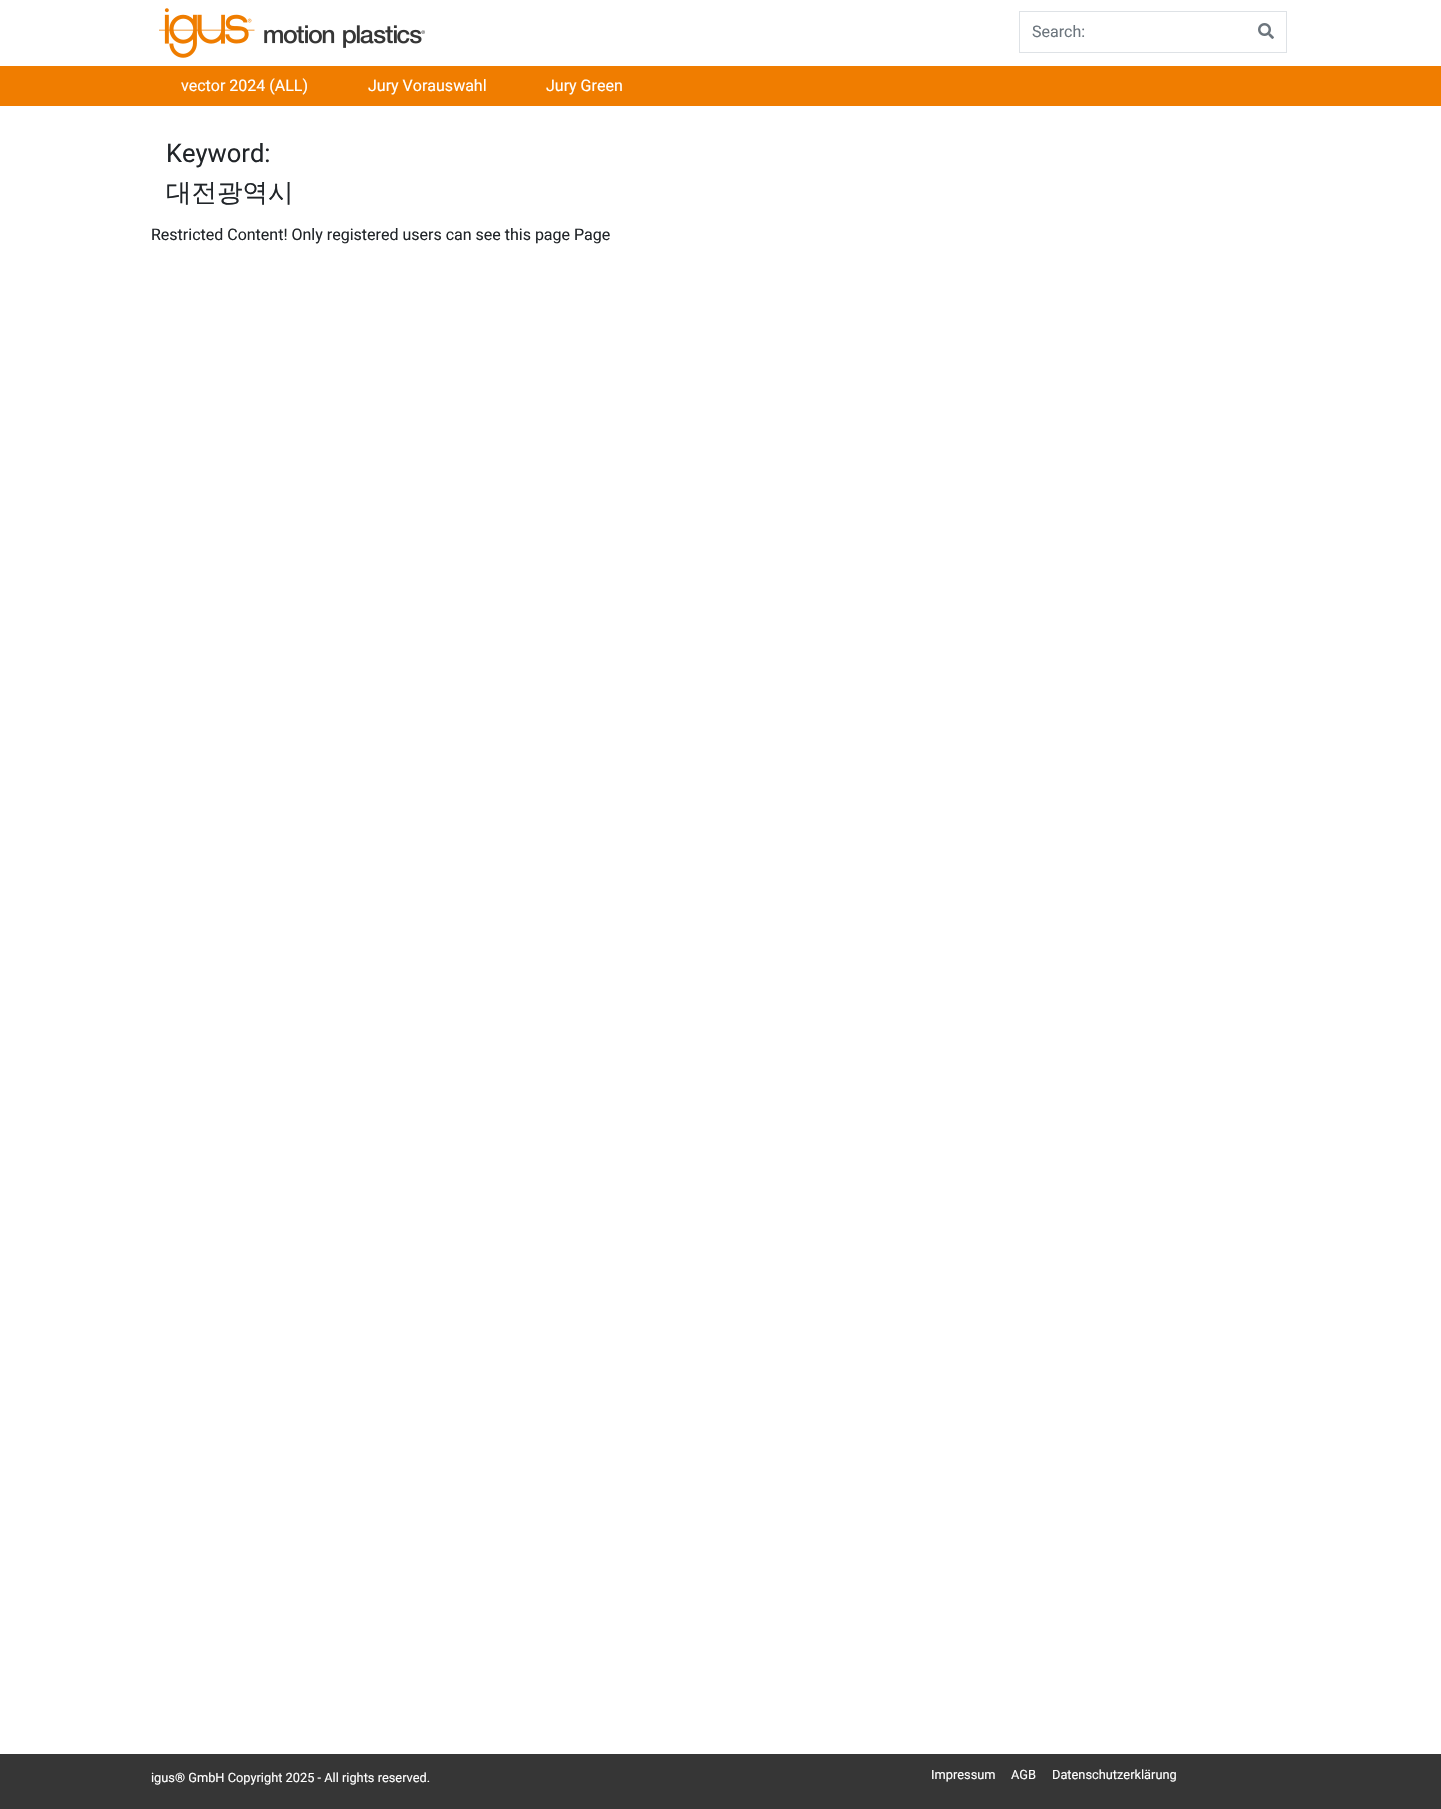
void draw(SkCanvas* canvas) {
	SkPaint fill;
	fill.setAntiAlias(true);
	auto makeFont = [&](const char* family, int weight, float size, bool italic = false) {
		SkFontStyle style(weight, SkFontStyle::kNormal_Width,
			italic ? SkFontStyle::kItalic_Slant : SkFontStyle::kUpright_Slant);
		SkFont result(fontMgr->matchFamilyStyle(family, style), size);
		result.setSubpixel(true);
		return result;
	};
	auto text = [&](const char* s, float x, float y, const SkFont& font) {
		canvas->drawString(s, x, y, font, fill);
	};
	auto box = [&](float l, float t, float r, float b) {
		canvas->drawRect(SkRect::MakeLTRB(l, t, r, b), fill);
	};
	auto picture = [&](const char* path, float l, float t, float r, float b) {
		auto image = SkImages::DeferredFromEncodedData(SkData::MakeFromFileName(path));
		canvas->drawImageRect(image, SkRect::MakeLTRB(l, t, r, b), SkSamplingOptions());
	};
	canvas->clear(0xFFFFFFFF);
	picture("image0.png", 159, 8, 425, 58);
	fill.setColor(0xFFDEE2E6);
	box(1019, 11, 1287, 12);
	box(1019, 52, 1247, 53);
	box(1019, 11, 1020, 53);
	box(1286, 11, 1287, 53);
	box(1246, 52, 1287, 53);
	picture("image1.png", 1258, 23, 1274, 39);
	fill.setColor(0xFFF07D00);
	box(0, 66, 1441, 106);
	fill.setColor(0xFF363636);
	box(0, 1754, 1441, 1809);
	auto font1 = makeFont("Roboto", 400, 16);
	fill.setColor(0xFF6C757D);
	text("Search:", 1032, 37, font1);
	fill.setColor(0xFFFFFFFF);
	text("vector 2024 (ALL)", 181, 91, font1);
	text("Jury Vorauswahl", 368, 91, font1);
	text("Jury Green", 546, 91, font1);
	auto font2 = makeFont("Roboto", 400, 25.5f);
	fill.setColor(0xFF212529);
	text("Keyword:", 166, 162, font2);
	auto font3 = makeFont("WenQuanYi Zen Hei", 500, 25.5f);
	text("대전광역시", 166, 201, font3);
	text("Restricted Content! Only registered users can see this page Page", 151, 240, font1);
	auto font4 = makeFont("Roboto", 400, 12.8f);
	fill.setColor(0xFFFFFFFF);
	text("igus® GmbH Copyright 2025 - All rights reserved.", 151, 1782, font4);
	text("Impressum", 931, 1779, font4);
	text("AGB", 1011, 1779, font4);
	text("Datenschutzerklärung", 1052, 1779, font4);
}
